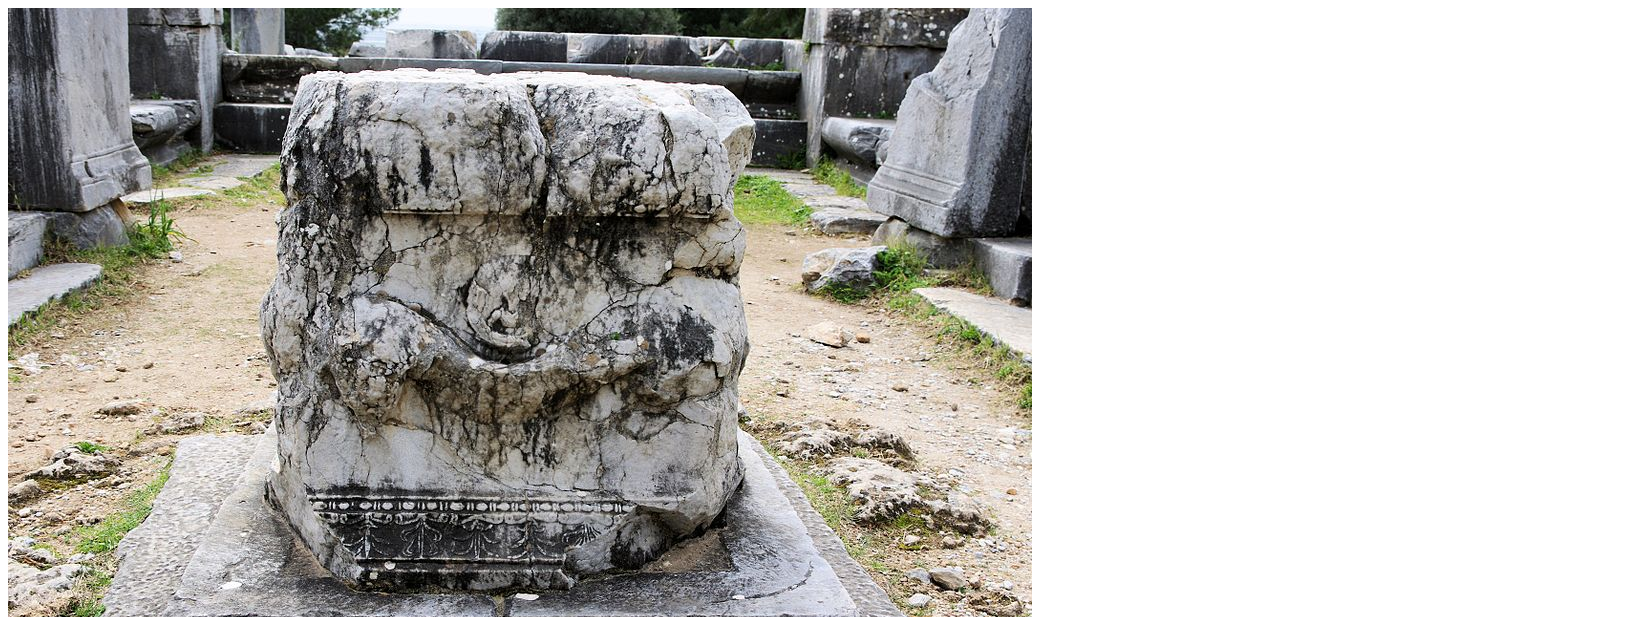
void draw(SkCanvas* canvas) {
	SkPaint fill;
	fill.setAntiAlias(true);
	auto picture = [&](const char* path, float l, float t, float r, float b) {
		auto image = SkImages::DeferredFromEncodedData(SkData::MakeFromFileName(path));
		canvas->drawImageRect(image, SkRect::MakeLTRB(l, t, r, b), SkSamplingOptions());
	};
	canvas->clear(0xFFFFFFFF);
	picture("image0.png", 8, 8, 1032, 617);
}
